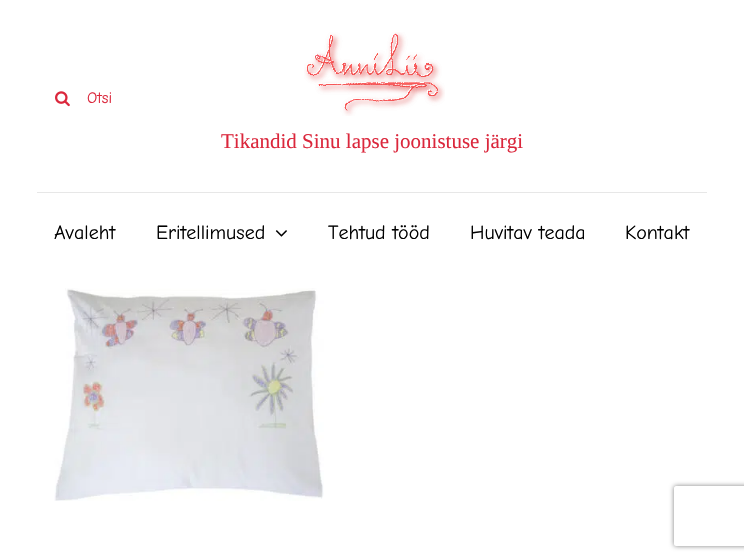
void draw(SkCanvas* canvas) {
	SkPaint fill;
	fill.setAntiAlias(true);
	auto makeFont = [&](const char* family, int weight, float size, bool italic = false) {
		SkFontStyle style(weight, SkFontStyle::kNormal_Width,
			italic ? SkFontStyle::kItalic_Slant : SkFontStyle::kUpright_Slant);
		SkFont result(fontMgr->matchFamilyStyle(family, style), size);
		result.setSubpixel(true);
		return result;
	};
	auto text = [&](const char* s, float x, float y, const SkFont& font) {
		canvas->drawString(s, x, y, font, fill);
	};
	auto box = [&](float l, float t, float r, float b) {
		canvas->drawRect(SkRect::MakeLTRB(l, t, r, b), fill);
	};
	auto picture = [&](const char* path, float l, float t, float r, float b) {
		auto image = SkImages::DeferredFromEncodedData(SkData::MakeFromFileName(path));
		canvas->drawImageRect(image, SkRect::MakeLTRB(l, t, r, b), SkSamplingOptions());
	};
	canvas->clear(0xFFFFFFFF);
	picture("image0.png", 55, 91, 70, 107);
	picture("image1.png", 304, 32, 445, 116);
	fill.setColor(0xFFE7E7E7);
	box(37, 192, 707, 193);
	picture("image2.png", 275, 230, 287, 237);
	picture("image3.png", 54, 288, 324, 501);
	canvas->save();
	canvas->clipPath(SkPathBuilder(SkPathFillType::kEvenOdd).moveTo(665, 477).lineTo(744, 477).lineTo(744, 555).lineTo(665, 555).close().moveTo(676, 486).lineTo(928, 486).cubicTo(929, 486, 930, 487, 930, 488).lineTo(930, 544).cubicTo(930, 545, 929, 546, 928, 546).lineTo(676, 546).cubicTo(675, 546, 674, 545, 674, 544).lineTo(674, 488).cubicTo(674, 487, 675, 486, 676, 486).close().detach(), true);
	fill.setColor(0xFF808080);
	fill.setMaskFilter(SkMaskFilter::MakeBlur(kNormal_SkBlurStyle, 2.5f));
	canvas->drawRoundRect(SkRect::MakeLTRB(674, 486, 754, 546), 2, 2, fill);
	fill.setMaskFilter(nullptr);
	canvas->restore();
	auto font1 = makeFont("Comic Neue", 400, 16);
	fill.setColor(0xFFDB273C);
	text("Otsi", 87, 103, font1);
	auto font2 = makeFont("Liberation Serif", 400, 21);
	text("Tikandid Sinu lapse joonistuse järgi", 221, 148, font2);
	auto font3 = makeFont("Comic Neue", 400, 20);
	fill.setColor(0xFF000000);
	text("Avaleht", 54, 239, font3);
	text("Eritellimused", 156, 239, font3);
	text("Tehtud tööd", 328, 239, font3);
	text("Huvitav teada", 470, 239, font3);
	text("Kontakt", 625, 239, font3);
}
